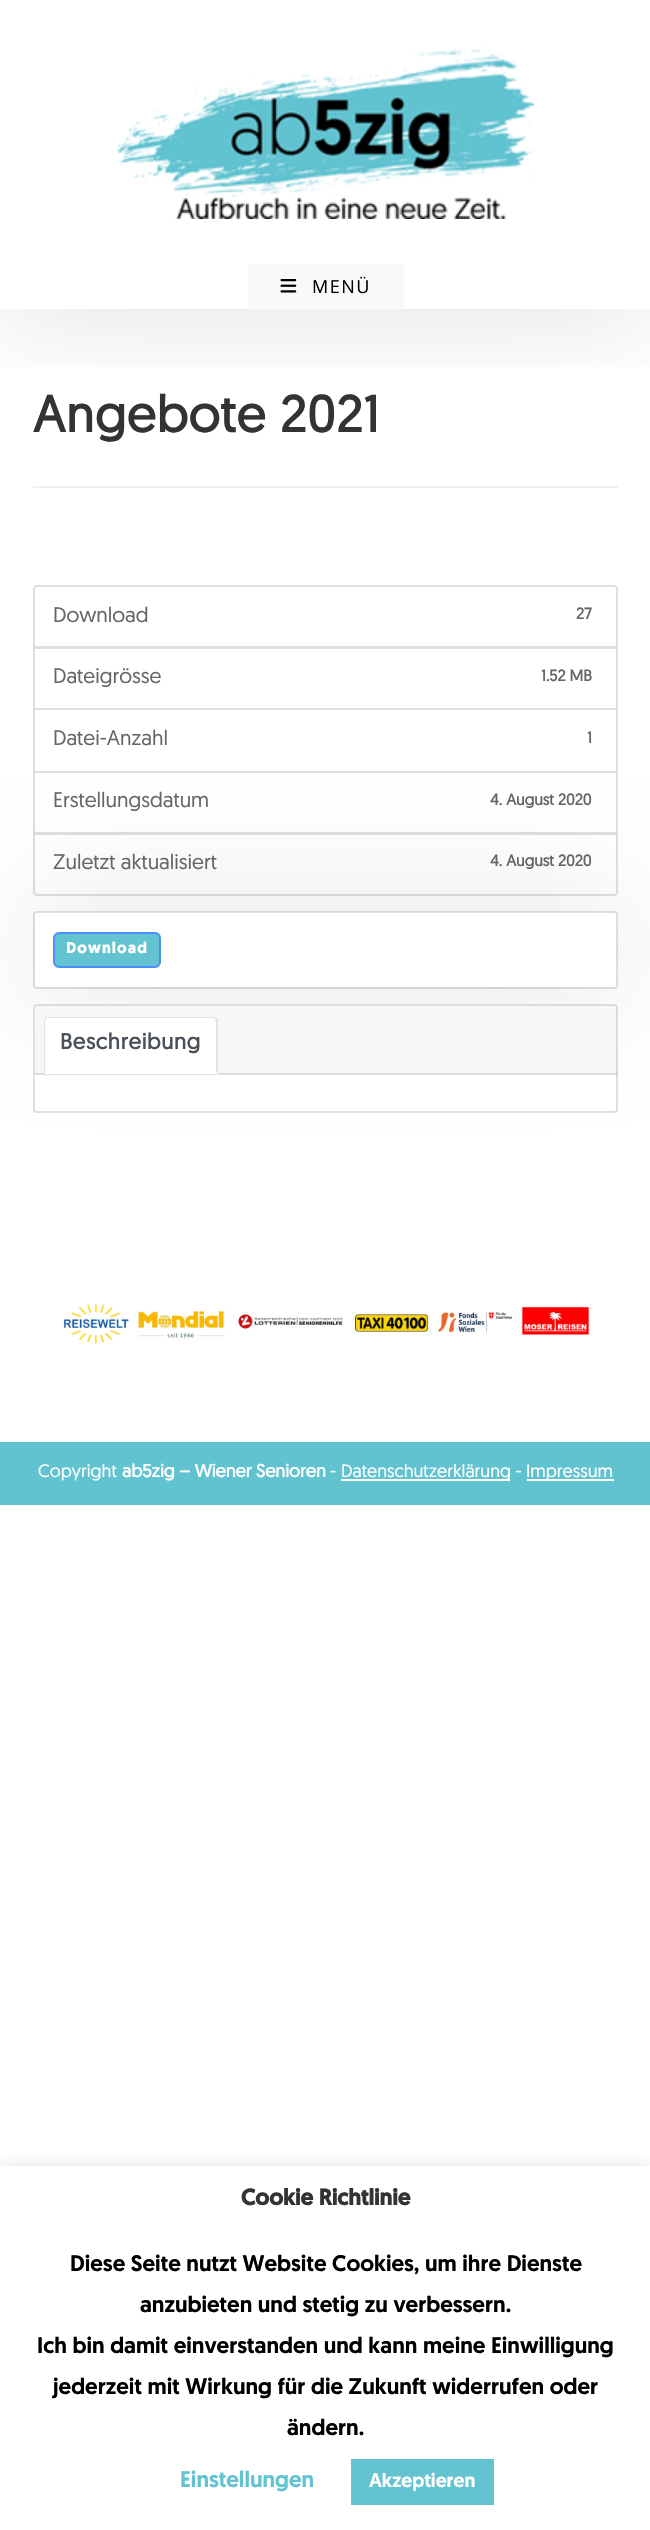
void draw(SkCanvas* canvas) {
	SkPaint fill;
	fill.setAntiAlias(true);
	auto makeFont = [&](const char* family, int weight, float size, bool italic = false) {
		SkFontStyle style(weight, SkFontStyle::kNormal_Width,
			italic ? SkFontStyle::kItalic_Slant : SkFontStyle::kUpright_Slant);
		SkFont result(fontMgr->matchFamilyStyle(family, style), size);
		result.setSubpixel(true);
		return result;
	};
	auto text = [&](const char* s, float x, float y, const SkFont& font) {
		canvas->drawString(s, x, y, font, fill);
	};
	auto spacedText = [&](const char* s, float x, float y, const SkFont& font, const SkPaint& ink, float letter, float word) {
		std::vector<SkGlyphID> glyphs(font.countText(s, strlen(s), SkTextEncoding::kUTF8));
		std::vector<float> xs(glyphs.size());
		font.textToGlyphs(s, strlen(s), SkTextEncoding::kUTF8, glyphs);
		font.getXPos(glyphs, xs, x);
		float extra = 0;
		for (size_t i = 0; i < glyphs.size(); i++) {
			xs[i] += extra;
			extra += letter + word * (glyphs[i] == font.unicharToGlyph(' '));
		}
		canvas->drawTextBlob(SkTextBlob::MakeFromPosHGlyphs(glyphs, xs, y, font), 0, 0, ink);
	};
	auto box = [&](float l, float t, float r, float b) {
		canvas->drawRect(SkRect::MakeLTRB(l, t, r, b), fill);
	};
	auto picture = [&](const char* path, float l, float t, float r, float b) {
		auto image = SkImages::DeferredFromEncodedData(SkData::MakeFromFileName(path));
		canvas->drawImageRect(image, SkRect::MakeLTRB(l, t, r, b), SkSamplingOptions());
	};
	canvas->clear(0xFFFFFFFF);
	fill.setColor(0xFFF1F1F1);
	box(33, 486, 618, 488);
	canvas->save();
	canvas->clipRect(SkRect::MakeLTRB(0, 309, 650, 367));
	fill.setColor(0x1F000000);
	fill.setMaskFilter(SkMaskFilter::MakeBlur(kNormal_SkBlurStyle, 60));
	canvas->drawRect(SkRect::MakeLTRB(0, 0, 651, 309), fill);
	fill.setMaskFilter(nullptr);
	canvas->restore();
	picture("image0.png", 117, 45, 534, 219);
	fill.setColor(0xFFF9F9F9);
	box(248, 264, 404, 309);
	picture("image1.png", 280, 279, 297, 293);
	fill.setStyle(SkPaint::kStroke_Style);
	fill.setStrokeWidth(2);
	fill.setColor(0xFFDFDFDF);
	canvas->drawPath(SkPathBuilder().moveTo(37, 586).lineTo(614, 586).cubicTo(615.5f, 586, 617, 587.5f, 617, 589).lineTo(617, 647).lineTo(34, 647).lineTo(34, 589).cubicTo(34, 587.5f, 35.5f, 586, 37, 586).close().detach(), fill);
	canvas->drawRect(SkRect::MakeLTRB(34, 648, 617, 709), fill);
	canvas->drawRect(SkRect::MakeLTRB(34, 709, 617, 772), fill);
	canvas->drawRect(SkRect::MakeLTRB(34, 772, 617, 833), fill);
	fill.setStyle(SkPaint::kFill_Style);
	fill.setColor(0xFFFFFFFF);
	canvas->drawPath(SkPathBuilder().moveTo(34, 834).lineTo(617, 834).lineTo(617, 892).cubicTo(617, 893.5f, 615.5f, 895, 614, 895).lineTo(37, 895).cubicTo(35.5f, 895, 34, 893.5f, 34, 892).close().detach(), fill);
	fill.setStyle(SkPaint::kStroke_Style);
	fill.setColor(0xFFDFDFDF);
	canvas->drawPath(SkPathBuilder().moveTo(34, 834).lineTo(617, 834).lineTo(617, 892).cubicTo(617, 893.5f, 615.5f, 895, 614, 895).lineTo(37, 895).cubicTo(35.5f, 895, 34, 893.5f, 34, 892).close().detach(), fill);
	canvas->drawRoundRect(SkRect::MakeLTRB(34, 912, 617, 988), 3, 3, fill);
	canvas->save();
	canvas->clipPath(SkPathBuilder(SkPathFillType::kEvenOdd).moveTo(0, 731).lineTo(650, 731).lineTo(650, 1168).lineTo(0, 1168).close().moveTo(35, 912).lineTo(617, 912).lineTo(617, 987).lineTo(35, 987).close().detach(), true);
	fill.setStyle(SkPaint::kFill_Style);
	fill.setColor(0x1F000000);
	fill.setMaskFilter(SkMaskFilter::MakeBlur(kNormal_SkBlurStyle, 60));
	canvas->drawRect(SkRect::MakeLTRB(35, 912, 617, 987), fill);
	fill.setMaskFilter(nullptr);
	canvas->restore();
	fill.setColor(0xFF63C3D1);
	canvas->drawRoundRect(SkRect::MakeLTRB(54, 933, 160, 967), 5, 5, fill);
	fill.setStyle(SkPaint::kStroke_Style);
	fill.setColor(0xFF4A8EFF);
	canvas->drawRoundRect(SkRect::MakeLTRB(54, 933, 160, 967), 5, 5, fill);
	fill.setStyle(SkPaint::kFill_Style);
	fill.setColor(0xFFFFFFFF);
	canvas->drawRoundRect(SkRect::MakeLTRB(34, 1005, 617, 1112), 3, 3, fill);
	fill.setStyle(SkPaint::kStroke_Style);
	fill.setColor(0xFFDFDFDF);
	canvas->drawRoundRect(SkRect::MakeLTRB(34, 1005, 617, 1112), 3, 3, fill);
	fill.setStyle(SkPaint::kFill_Style);
	fill.setColor(0x08000000);
	box(35, 1005, 617, 1074);
	fill.setColor(0x1F000000);
	box(35, 1073, 617, 1075);
	fill.setColor(0xFFFFFFFF);
	canvas->drawPath(SkPathBuilder().moveTo(48, 1017).lineTo(214, 1017).cubicTo(216, 1017, 218, 1019, 218, 1021).lineTo(218, 1074).lineTo(44, 1074).lineTo(44, 1021).cubicTo(44, 1019, 46, 1017, 48, 1017).close().detach(), fill);
	fill.setColor(0xFFDEE2E6);
	canvas->drawPath(SkPathBuilder().moveTo(47, 1017).lineTo(45, 1018).lineTo(46, 1019).lineTo(47, 1018).lineTo(214, 1018).lineTo(215, 1019).lineTo(216, 1018).lineTo(214, 1017).close().detach(), fill);
	canvas->drawPath(SkPathBuilder().moveTo(218, 1019).lineTo(218, 1074).lineTo(216, 1072).lineTo(216, 1021).lineTo(215, 1019).lineTo(216, 1018).close().detach(), fill);
	fill.setColor(0xFFFFFFFF);
	canvas->drawPath(SkPathBuilder().moveTo(218, 1074).lineTo(216, 1072).lineTo(46, 1072).lineTo(44, 1074).close().detach(), fill);
	fill.setColor(0xFFDEE2E6);
	canvas->drawPath(SkPathBuilder().moveTo(45, 1018).lineTo(44, 1021).lineTo(44, 1074).lineTo(46, 1072).lineTo(45, 1072).lineTo(45, 1021).lineTo(46, 1019).close().detach(), fill);
	picture("image2.png", 63, 1303, 590, 1344);
	fill.setColor(0xFF62C3D0);
	box(0, 1442, 650, 1505);
	fill.setColor(0xFFFFFFFF);
	box(341, 1479, 510, 1481);
	box(527, 1479, 614, 1481);
	canvas->save();
	canvas->clipRect(SkRect::MakeLTRB(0, 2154, 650, 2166));
	fill.setColor(0x4DACABAB);
	fill.setMaskFilter(SkMaskFilter::MakeBlur(kNormal_SkBlurStyle, 7.5f));
	canvas->drawRect(SkRect::MakeLTRB(0, 2165, 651, 2529), fill);
	fill.setMaskFilter(nullptr);
	canvas->restore();
	fill.setColor(0xFF63C3D1);
	box(351, 2459, 494, 2505);
	auto font1 = makeFont("Open Sans", 400, 18);
	fill.setColor(0xFF000000);
	spacedText("MENÜ", 312, 293, font1, fill, 1.5f, 0);
	auto font2 = makeFont("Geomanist", 700, 51);
	fill.setColor(0xFF333333);
	spacedText("Angebote 2021", 33, 432, font2, fill, 0.9f, 0);
	auto font3 = makeFont("Geomanist", 400, 21);
	fill.setColor(0xFF666666);
	text("Download", 53, 622, font3);
	auto font4 = makeFont("Geomanist", 700, 15.75f);
	text("27", 576, 619, font4);
	text("Dateigrösse", 53, 683, font3);
	text("1.52 MB", 541, 681, font4);
	text("Datei-Anzahl", 53, 745, font3);
	text("1", 587, 743, font4);
	text("Erstellungsdatum", 53, 807, font3);
	text("4. August 2020", 490, 805, font4);
	text("Zuletzt aktualisiert", 53, 869, font3);
	text("4. August 2020", 490, 866, font4);
	auto font5 = makeFont("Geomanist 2", 700, 15);
	fill.setColor(0xFFFFFFFF);
	spacedText("Download", 66, 953, font5, fill, 1.5f, 0);
	auto font6 = makeFont("Geomanist", 700, 22);
	fill.setColor(0xFF495057);
	spacedText("Beschreibung", 60, 1049, font6, fill, 0.75f, 0);
	auto font7 = makeFont("Geomanist", 400, 18);
	fill.setColor(0xFFFFFFFF);
	text("Copyright", 38, 1477, font7);
	auto font8 = makeFont("Geomanist", 700, 18);
	text("ab5zig – Wiener Senioren", 122, 1477, font8);
	text("-", 330, 1477, font7);
	text("Datenschutzerklärung -", 341, 1477, font7);
	text("Impressum", 526, 1477, font7);
	auto font9 = makeFont("Geomanist 2", 700, 22.5f);
	fill.setColor(0xFF333333);
	text("Cookie Richtlinie", 241, 2205, font9);
	auto font10 = makeFont("Geomanist", 500, 22.5f);
	fill.setColor(0xFF000000);
	text("Diese Seite nutzt Website Cookies, um ihre Dienste", 70, 2271, font10);
	text("anzubieten und stetig zu verbessern.", 140, 2312, font10);
	text("Ich bin damit einverstanden und kann meine Einwilligung", 37, 2353, font10);
	text("jederzeit mit Wirkung für die Zukunft widerrufen oder", 53, 2394, font10);
	text("ändern.", 287, 2435, font10);
	fill.setColor(0xFF63C3D1);
	text("Einstellungen", 180, 2487, font10);
	auto font11 = makeFont("Geomanist", 500, 19.5f);
	fill.setColor(0xFFFFFFFF);
	text("Akzeptieren", 369, 2487, font11);
}
